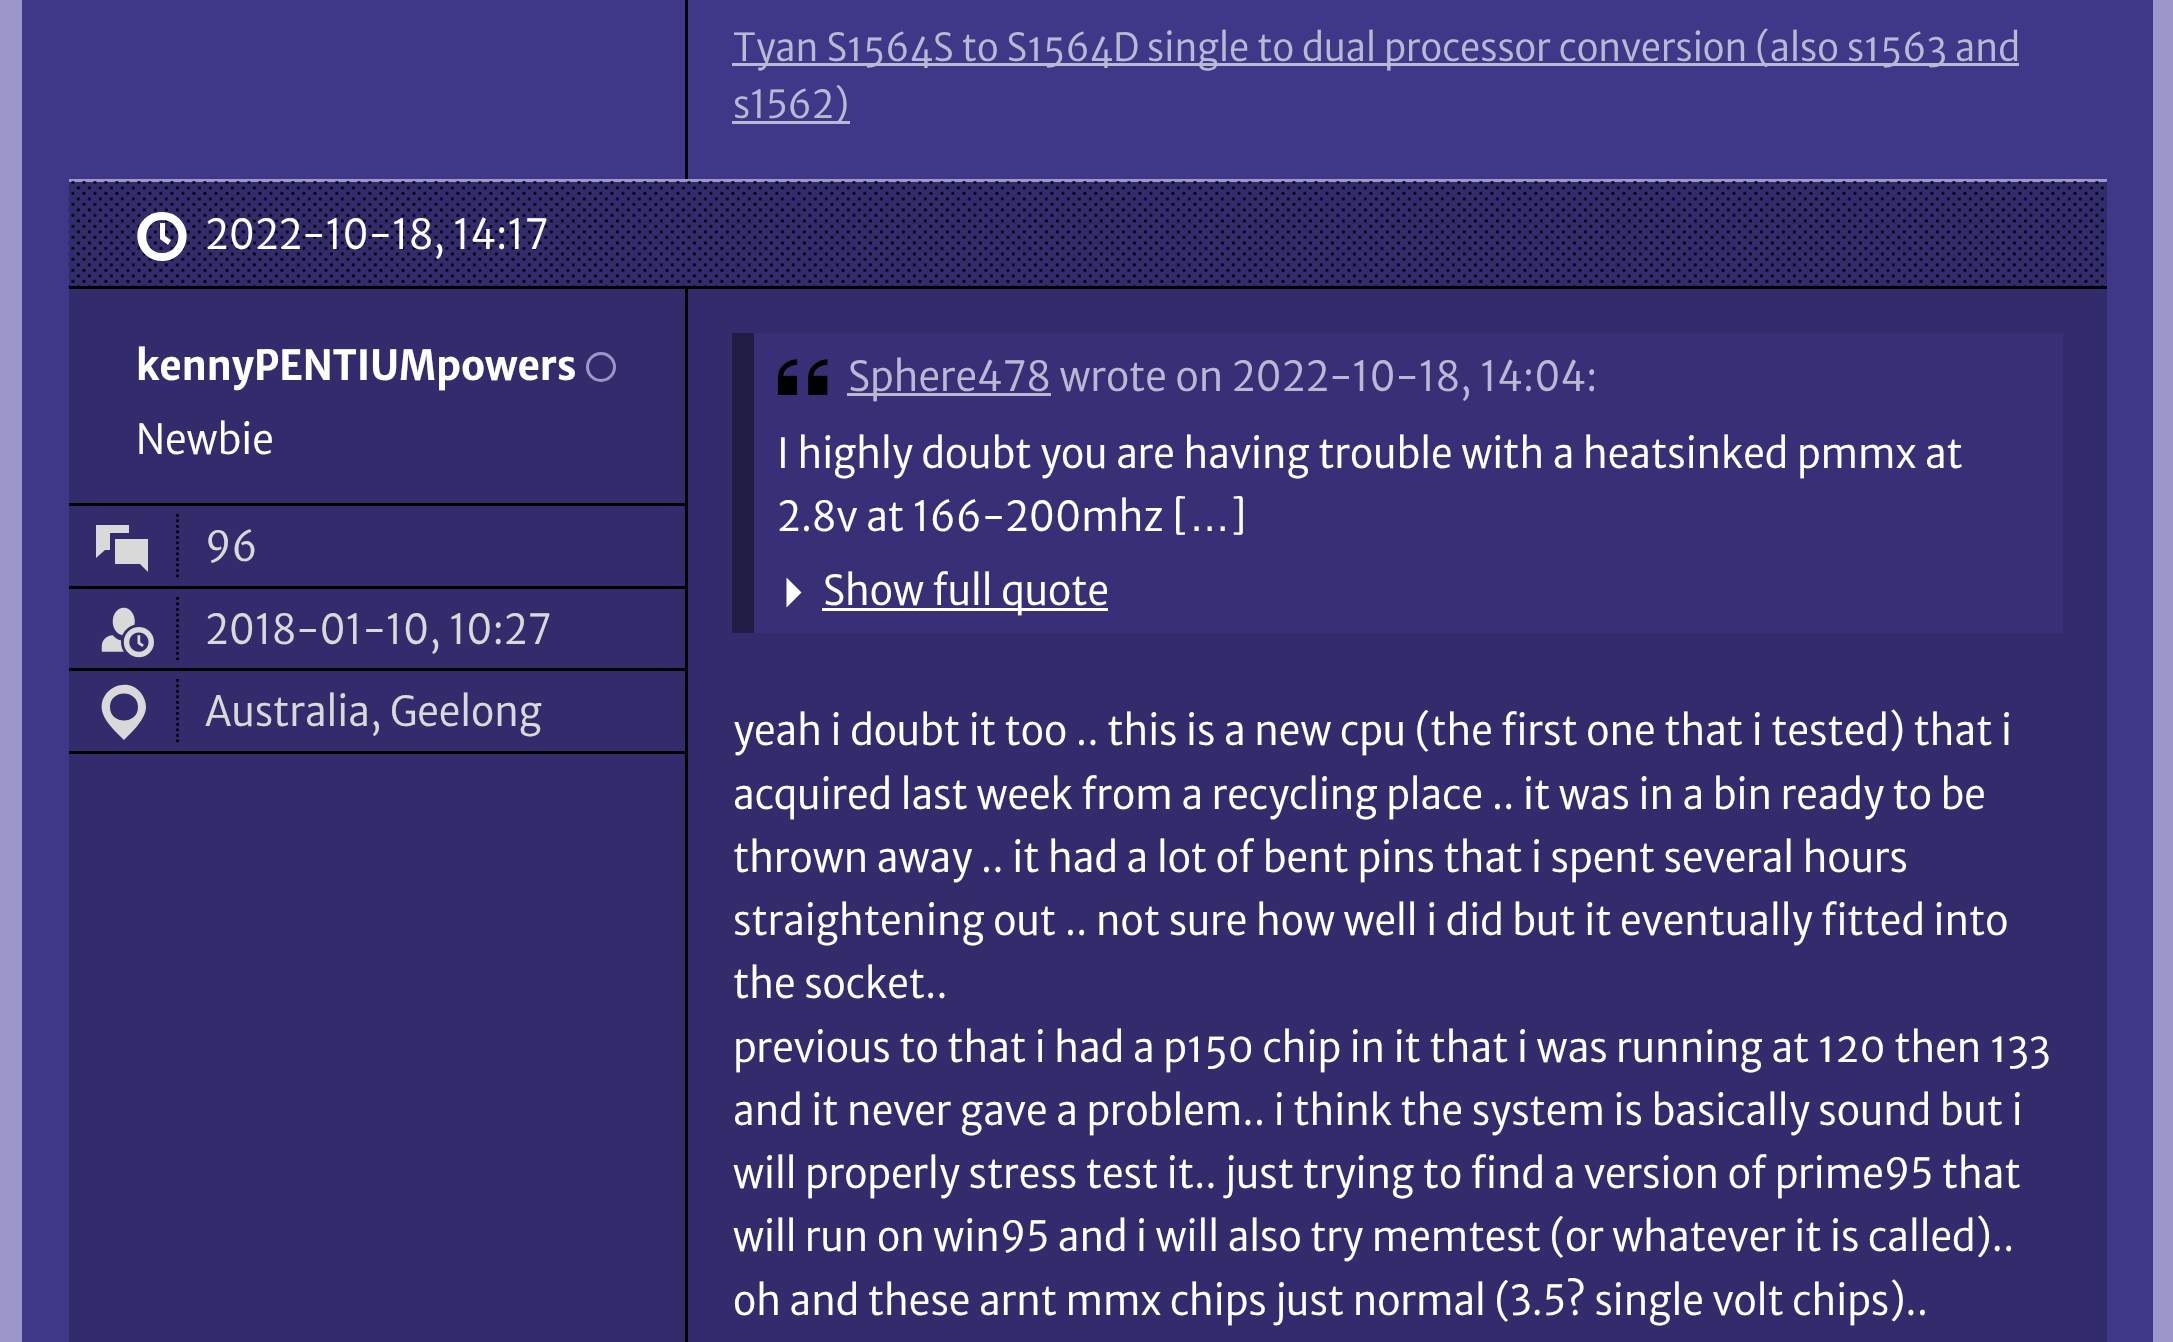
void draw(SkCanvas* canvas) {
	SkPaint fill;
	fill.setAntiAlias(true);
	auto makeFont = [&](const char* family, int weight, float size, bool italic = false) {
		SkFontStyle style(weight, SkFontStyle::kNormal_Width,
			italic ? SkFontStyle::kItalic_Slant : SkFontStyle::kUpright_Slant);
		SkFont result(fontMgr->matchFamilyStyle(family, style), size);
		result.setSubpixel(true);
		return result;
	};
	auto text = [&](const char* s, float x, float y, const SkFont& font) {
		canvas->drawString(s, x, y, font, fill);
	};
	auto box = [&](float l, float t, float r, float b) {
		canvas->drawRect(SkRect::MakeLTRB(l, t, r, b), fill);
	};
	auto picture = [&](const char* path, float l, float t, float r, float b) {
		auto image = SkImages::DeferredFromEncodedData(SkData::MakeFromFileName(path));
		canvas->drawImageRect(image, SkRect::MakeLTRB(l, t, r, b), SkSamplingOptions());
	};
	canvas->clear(0xFF3F3788);
	fill.setStyle(SkPaint::kStroke_Style);
	fill.setStrokeWidth(22);
	fill.setColor(0xFF9B97CB);
	canvas->drawRect(SkRect::MakeLTRB(11, -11, 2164, 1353), fill);
	fill.setStyle(SkPaint::kFill_Style);
	fill.setColor(0xFF000000);
	box(685, 0, 688, 179);
	fill.setColor(0xFFBAB9D4);
	box(732, 63, 2019, 66);
	box(732, 121, 850, 124);
	fill.setColor(0xFF322C6D);
	box(69, 182, 2107, 1342);
	fill.setColor(0xFF9B97CB);
	box(69, 179, 2107, 182);
	picture("image0.png", 68, 181, 2107, 288);
	fill.setColor(0xFF000000);
	box(69, 286, 2107, 289);
	fill.setColor(0xFFFFFFFF);
	canvas->drawPath(SkPathBuilder().moveTo(168, 245).lineTo(160, 239).lineTo(160, 223).lineTo(165, 223).lineTo(165, 236).lineTo(171, 240).close().moveTo(162, 212).cubicTo(157, 212, 152, 213, 148, 216).cubicTo(128, 229, 138, 261, 162, 261).cubicTo(186, 261, 196, 230, 176, 216).cubicTo(172, 213, 167, 212, 162, 212).close().moveTo(162, 253).cubicTo(141, 253, 141, 220, 162, 220).cubicTo(184, 220, 184, 253, 162, 253).close().detach(), fill);
	fill.setStyle(SkPaint::kStroke_Style);
	fill.setStrokeWidth(3);
	fill.setColor(0xFF9B97CB);
	canvas->drawCircle(601, 367, 13.5f, fill);
	fill.setStyle(SkPaint::kFill_Style);
	fill.setColor(0xFF000000);
	box(69, 503, 685, 506);
	box(69, 586, 685, 589);
	fill.setColor(0xFFD9D9D9);
	canvas->drawPath(SkPathBuilder().moveTo(129, 525).lineTo(129, 533).lineTo(110, 533).lineTo(110, 550).lineTo(105, 550).lineTo(96, 558).lineTo(96, 525).close().moveTo(148, 539).lineTo(148, 572).lineTo(140, 564).lineTo(115, 564).lineTo(115, 539).close().detach(), fill);
	fill.setStyle(SkPaint::kStroke_Style);
	fill.setStrokeWidth(2.8f);
	fill.setColor(0xFF000000);
	fill.setPathEffect(SkDashPathEffect::Make({{2.75f, 2.75f}}, 0));
	canvas->drawPath(SkPathBuilder().moveTo(177.5f, 514).lineTo(177.5f, 577.5f).detach(), fill);
	fill.setPathEffect(nullptr);
	fill.setStyle(SkPaint::kFill_Style);
	box(69, 668, 685, 671);
	picture("image1.png", 101, 607, 154, 658);
	fill.setStyle(SkPaint::kStroke_Style);
	fill.setPathEffect(SkDashPathEffect::Make({{2.75f, 2.75f}}, 0));
	canvas->drawPath(SkPathBuilder().moveTo(177.5f, 597).lineTo(177.5f, 660).detach(), fill);
	fill.setPathEffect(nullptr);
	fill.setStyle(SkPaint::kFill_Style);
	box(69, 751, 685, 754);
	fill.setColor(0xFFD9D9D9);
	canvas->drawPath(SkPathBuilder().moveTo(146, 707).cubicTo(146, 719, 132, 732, 124, 740).cubicTo(116, 732, 107, 724, 103, 714).cubicTo(95, 691, 126, 674, 141, 693).cubicTo(144, 697, 146, 702, 146, 707).close().moveTo(110, 707).cubicTo(110, 725, 138, 725, 138, 707).cubicTo(138, 689, 110, 689, 110, 707).close().detach(), fill);
	fill.setStyle(SkPaint::kStroke_Style);
	fill.setColor(0xFF000000);
	fill.setPathEffect(SkDashPathEffect::Make({{2.75f, 2.75f}}, 0));
	canvas->drawPath(SkPathBuilder().moveTo(177.5f, 679).lineTo(177.5f, 742.5f).detach(), fill);
	fill.setPathEffect(nullptr);
	fill.setStyle(SkPaint::kFill_Style);
	box(685, 289, 688, 1342);
	fill.setColor(0xFF373076);
	box(754, 333, 2063, 633);
	fill.setColor(0xFF201C44);
	box(732, 333, 754, 633);
	picture("image2.png", 777, 359, 828, 395);
	fill.setColor(0xFFBAB9D4);
	box(847, 393, 1051, 396);
	fill.setColor(0xFFFFFFFF);
	canvas->drawPath(SkPathBuilder().moveTo(786.5f, 577.5f).lineTo(801.5f, 592.5f).lineTo(786.5f, 607.5f).close().detach(), fill);
	box(822, 608, 1108, 611);
	auto font1 = makeFont("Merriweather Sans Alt", 400, 38.5f);
	fill.setColor(0xFFBAB9D4);
	text("Tyan S1564S to S1564D single to dual processor conversion (also s1563 and", 733, 61, font1);
	auto font2 = makeFont("Merriweather Sans", 400, 38.5f);
	text("s1562)", 733, 118, font2);
	auto font3 = makeFont("Merriweather Sans", 400, 41.25f);
	fill.setColor(0xFFFFFFFF);
	text("2022-10-18, 14:17", 205, 249, font3);
	auto font4 = makeFont("Merriweather Sans", 700, 41.25f);
	text("kennyPENTIUMpowers", 136, 380, font4);
	text("Newbie", 136, 454, font3);
	fill.setColor(0xFFD9D9D9);
	text("96", 205, 561, font3);
	text("2018-01-10, 10:27", 205, 644, font3);
	text("Australia, Geelong", 205, 726, font3);
	fill.setColor(0xFFBAB9D4);
	text("Sphere478 wrote on 2022-10-18, 14:04:", 848, 391, font3);
	fill.setColor(0xFFFFFFFF);
	text("I highly doubt you are having trouble with a heatsinked pmmx at", 777, 468, font3);
	text("2.8v at 166-200mhz [", 777, 531, font3);
	auto font5 = makeFont("Liberation Sans", 400, 41.25f);
	text("…", 1189, 531, font5);
	text("]", 1230, 531, font3);
	text("Show full quote", 823, 605, font3);
	text("yeah i doubt it too .. this is a new cpu (the first one that i tested) that i", 733, 745, font3);
	text("acquired last week from a recycling place .. it was in a bin ready to be", 733, 809, font3);
	text("thrown away .. it had a lot of bent pins that i spent several hours", 733, 872, font3);
	text("straightening out .. not sure how well i did but it eventually fitted into", 733, 935, font3);
	text("the socket..", 733, 998, font3);
	auto font6 = makeFont("Merriweather Sans Alt", 400, 41.25f);
	text("previous to that i had a p150 chip in it that i was running at 120 then 133", 733, 1062, font6);
	text("and it never gave a problem.. i think the system is basically sound but i", 733, 1125, font3);
	text("will properly stress test it.. just trying to find a version of prime95 that", 733, 1188, font3);
	text("will run on win95 and i will also try memtest (or whatever it is called)..", 733, 1251, font3);
	text("oh and these arnt mmx chips just normal (3.5? single volt chips)..", 733, 1315, font3);
}
